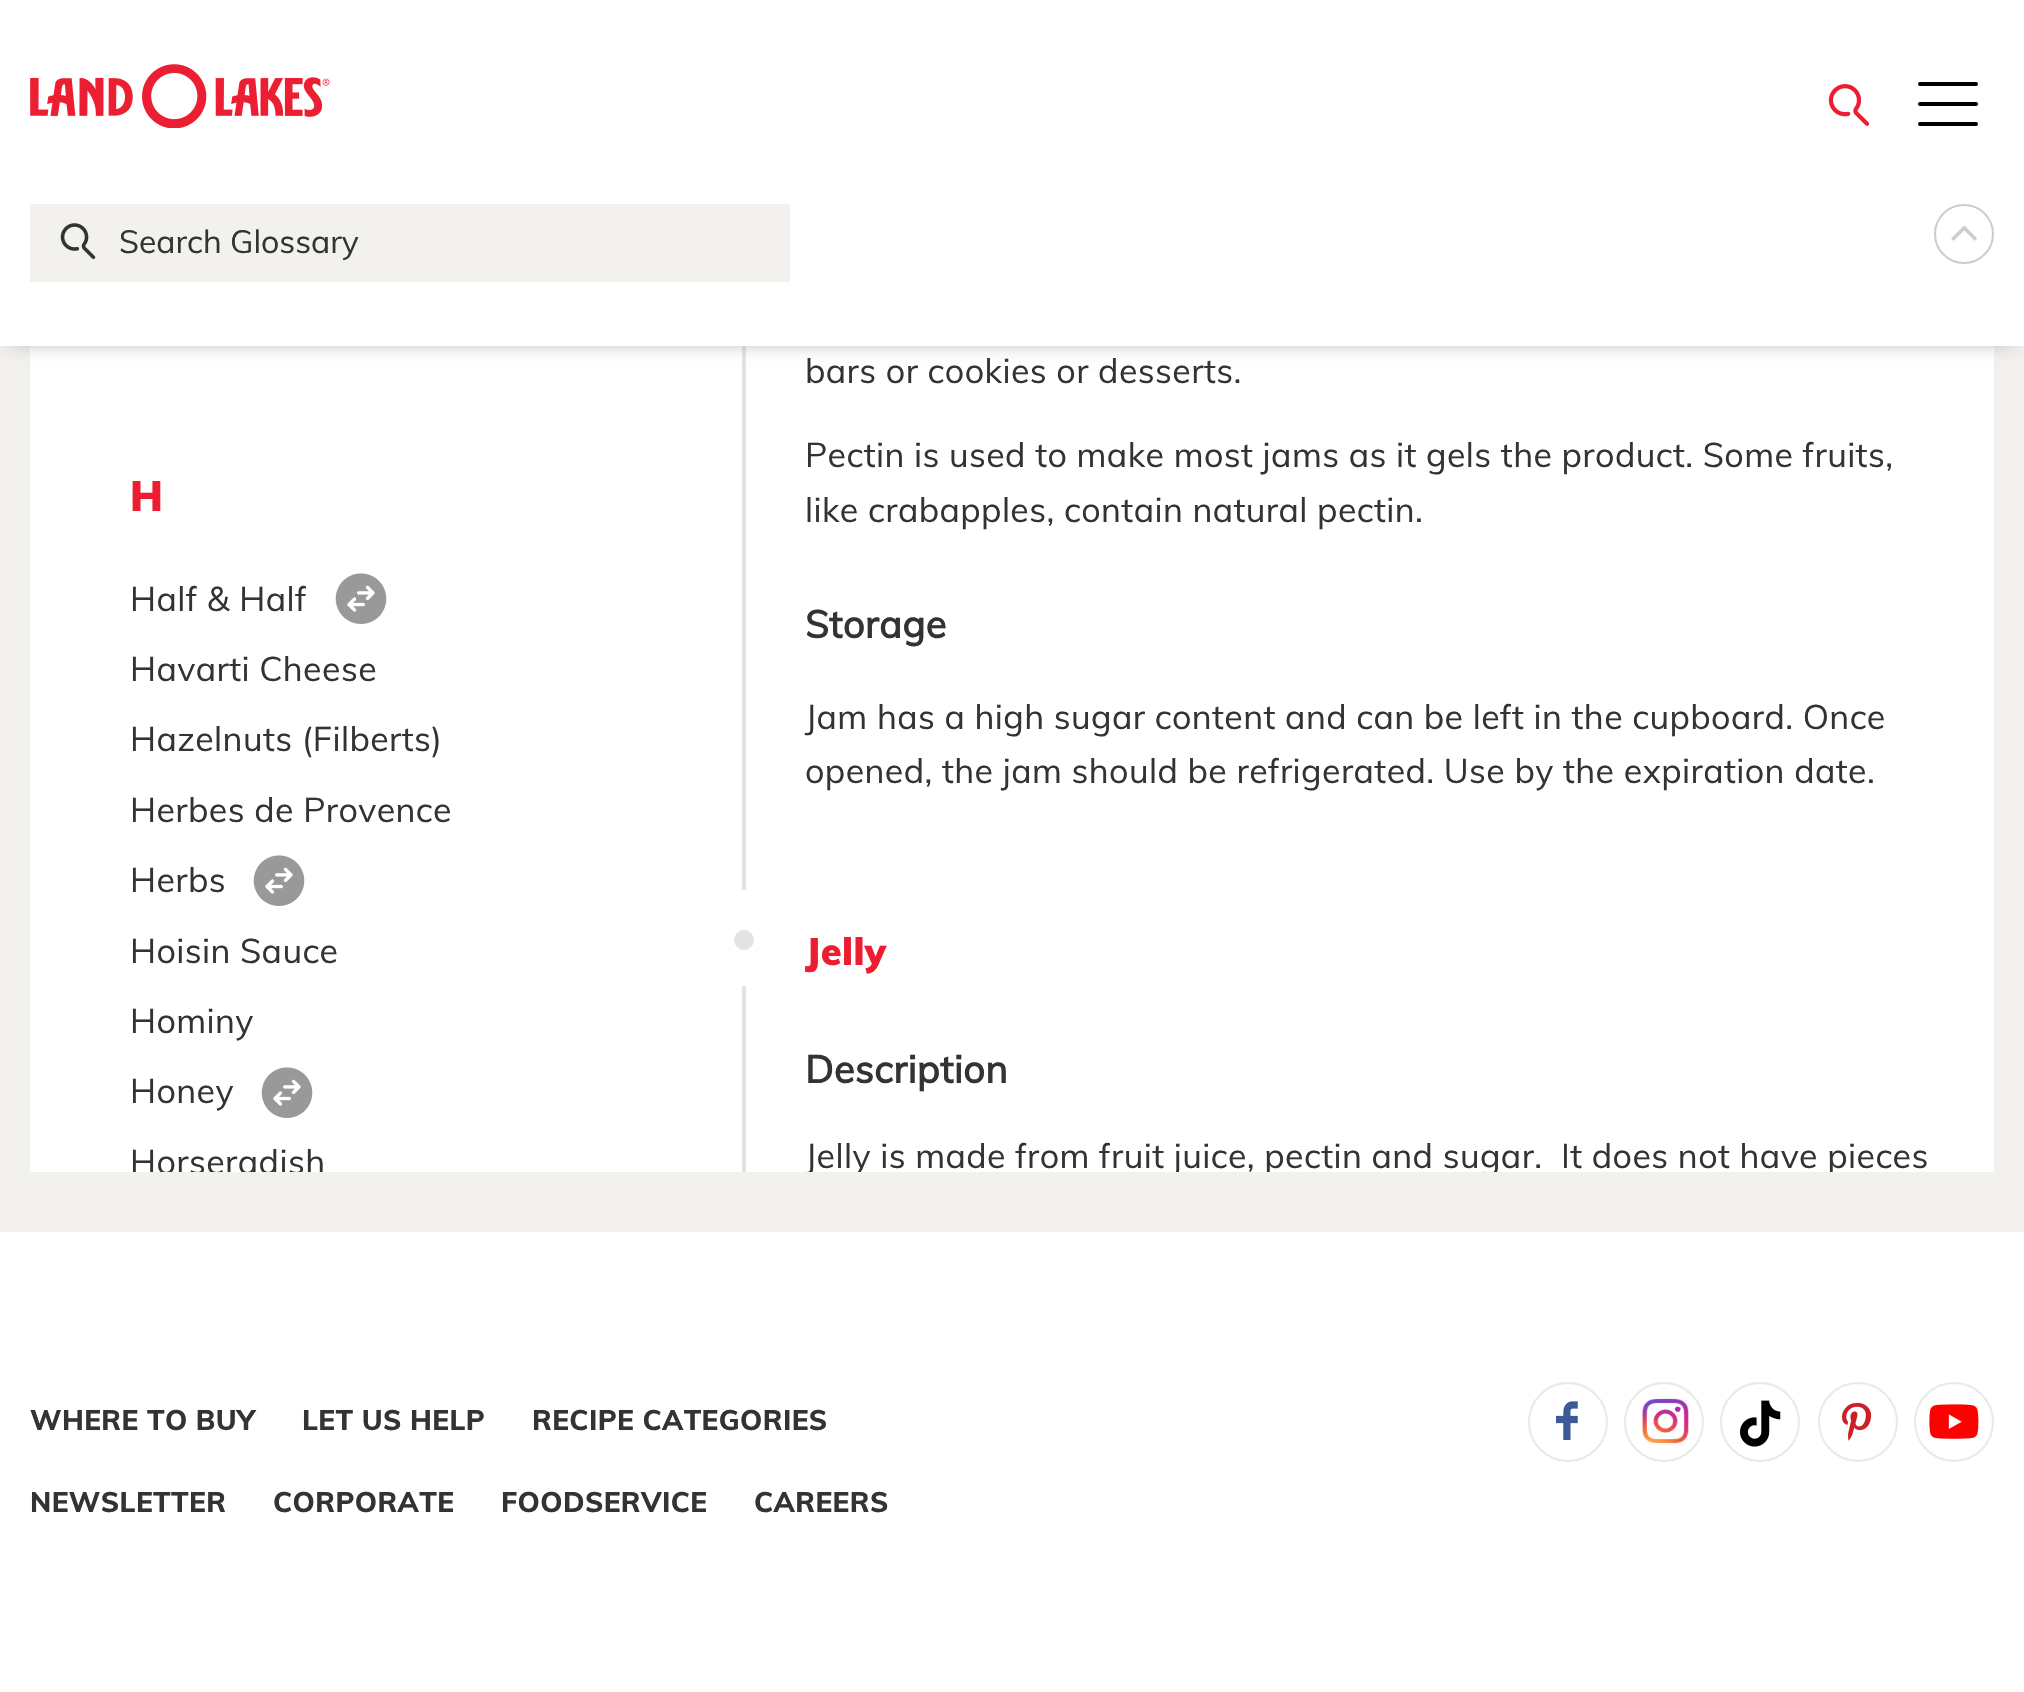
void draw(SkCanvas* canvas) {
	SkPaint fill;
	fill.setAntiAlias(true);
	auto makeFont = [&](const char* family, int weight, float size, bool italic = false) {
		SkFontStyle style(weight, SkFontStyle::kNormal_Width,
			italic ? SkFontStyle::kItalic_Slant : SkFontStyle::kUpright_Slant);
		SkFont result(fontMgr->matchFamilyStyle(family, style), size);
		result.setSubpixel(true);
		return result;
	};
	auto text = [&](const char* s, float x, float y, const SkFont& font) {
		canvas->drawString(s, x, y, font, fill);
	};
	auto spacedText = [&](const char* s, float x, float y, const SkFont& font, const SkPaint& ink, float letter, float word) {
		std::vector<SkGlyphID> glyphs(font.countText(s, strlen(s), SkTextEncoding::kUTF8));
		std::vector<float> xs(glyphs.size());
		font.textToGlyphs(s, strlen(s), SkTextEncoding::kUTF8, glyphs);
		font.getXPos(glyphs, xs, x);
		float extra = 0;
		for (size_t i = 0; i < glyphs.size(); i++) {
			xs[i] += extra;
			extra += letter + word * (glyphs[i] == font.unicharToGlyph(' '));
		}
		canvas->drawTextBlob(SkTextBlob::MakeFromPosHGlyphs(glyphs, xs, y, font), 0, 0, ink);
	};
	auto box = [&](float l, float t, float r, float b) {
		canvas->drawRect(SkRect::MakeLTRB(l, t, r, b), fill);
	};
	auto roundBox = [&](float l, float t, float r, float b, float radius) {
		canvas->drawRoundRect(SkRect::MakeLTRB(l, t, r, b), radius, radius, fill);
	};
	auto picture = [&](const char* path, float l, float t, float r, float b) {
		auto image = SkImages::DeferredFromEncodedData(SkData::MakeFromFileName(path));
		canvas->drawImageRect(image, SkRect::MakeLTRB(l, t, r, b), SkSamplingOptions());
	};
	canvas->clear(0xFFF2F1ED);
	fill.setColor(0xFFFFFFFF);
	box(30, 346, 1994, 1172);
	fill.setColor(0xFFE3E3E3);
	box(742, 346, 746, 890);
	fill.setColor(0xFF999999);
	fill.setMaskFilter(SkMaskFilter::MakeBlur(kNormal_SkBlurStyle, 10));
	canvas->drawRect(SkRect::MakeLTRB(10, 154, 2014, 340), fill);
	fill.setMaskFilter(nullptr);
	fill.setColor(0xFFFFFFFF);
	box(0, 0, 2024, 346);
	picture("image0.png", 30, 64, 330, 128);
	picture("image1.png", 1828, 84, 1870, 126);
	fill.setColor(0xFF000000);
	roundBox(1918, 82, 1978, 86, 2);
	roundBox(1918, 102, 1978, 106, 2);
	roundBox(1918, 122, 1978, 126, 2);
	fill.setColor(0xFFF2F1ED);
	box(30, 204, 790, 282);
	picture("image2.png", 60, 223, 96, 260);
	fill.setStyle(SkPaint::kStroke_Style);
	fill.setStrokeWidth(2);
	fill.setColor(0xFFCCCCCC);
	canvas->drawCircle(1964, 234, 29, fill);
	picture("image3.png", 1951, 225, 1977, 241);
	picture("image4.png", 335, 573, 387, 624);
	picture("image4.png", 253, 855, 305, 906);
	picture("image4.png", 261, 1067, 313, 1118);
	fill.setStyle(SkPaint::kFill_Style);
	fill.setColor(0xFFE3E3E3);
	canvas->drawCircle(744, 940, 10, fill);
	box(742, 986, 746, 1172);
	fill.setColor(0xFFFFFFFF);
	box(0, 1232, 2024, 1692);
	fill.setStyle(SkPaint::kStroke_Style);
	fill.setColor(0xFFE9E9E9);
	canvas->drawCircle(1568, 1422, 39, fill);
	picture("image5.png", 1556, 1401, 1578, 1440);
	picture("image6.png", 1642, 1398, 1689, 1444);
	canvas->drawCircle(1664, 1422, 39, fill);
	canvas->drawCircle(1760, 1422, 39, fill);
	picture("image7.png", 1740, 1400, 1781, 1447);
	canvas->drawCircle(1858, 1422, 39, fill);
	picture("image8.png", 1842, 1402, 1872, 1441);
	canvas->drawCircle(1954, 1422, 39, fill);
	picture("image9.png", 1929, 1404, 1979, 1439);
	auto font1 = makeFont("Muli", 400, 32);
	fill.setStyle(SkPaint::kFill_Style);
	fill.setColor(0xFF333333);
	text("Search Glossary", 119, 253, font1);
	auto font2 = makeFont("Muli", 900, 42);
	fill.setColor(0xFFED1C30);
	spacedText("H", 130, 511, font2, fill, 0.4f, 0);
	auto font3 = makeFont("Muli", 400, 34);
	fill.setColor(0xFF333333);
	spacedText("Half & Half", 130, 611, font3, fill, 0.4f, 0);
	spacedText("Havarti Cheese", 130, 681, font3, fill, 0.4f, 0);
	spacedText("Hazelnuts (Filberts)", 130, 751, font3, fill, 0.4f, 0);
	spacedText("Herbes de Provence", 130, 822, font3, fill, 0.4f, 0);
	spacedText("Herbs", 130, 892, font3, fill, 0.4f, 0);
	spacedText("Hoisin Sauce", 130, 963, font3, fill, 0.4f, 0);
	spacedText("Hominy", 130, 1033, font3, fill, 0.4f, 0);
	spacedText("Honey", 130, 1103, font3, fill, 0.4f, 0);
	canvas->save();
	canvas->clipRect(SkRect::MakeLTRB(30, 0, 684, 1172));
	spacedText("Horseradish", 130, 1174, font3, fill, 0.4f, 0);
	canvas->restore();
	spacedText("bars or cookies or desserts.", 805, 383, font3, fill, 0.4f, 0);
	spacedText("Pectin is used to make most jams as it gels the product. Some fruits,", 805, 467, font3, fill, 0.4f, 0);
	spacedText("like crabapples, contain natural pectin.", 805, 522, font3, fill, 0.4f, 0);
	auto font4 = makeFont("Muli", 700, 38);
	spacedText("Storage", 805, 638, font4, fill, 0.4f, 0);
	spacedText("Jam has a high sugar content and can be left in the cupboard. Once", 805, 729, font3, fill, 0.4f, 0);
	spacedText("opened, the jam should be refrigerated. Use by the expiration date.", 805, 783, font3, fill, 0.4f, 0);
	auto font5 = makeFont("Muli", 900, 38);
	fill.setColor(0xFFED1C30);
	spacedText("Jelly", 805, 965, font5, fill, 0.4f, 0);
	fill.setColor(0xFF333333);
	spacedText("Description", 805, 1083, font4, fill, 0.4f, 0);
	canvas->save();
	canvas->clipRect(SkRect::MakeLTRB(684, 0, 1994, 1172));
	spacedText("Jelly is made from fruit juice, pectin and sugar.  It does not have pieces", 805, 1168, font3, fill, 0.4f, 0);
	canvas->restore();
	auto font6 = makeFont("Muli", 800, 28);
	spacedText("WHERE TO BUY", 30, 1430, font6, fill, 0.4f, 0);
	spacedText("LET US HELP", 302, 1430, font6, fill, 0.4f, 0);
	spacedText("RECIPE CATEGORIES", 532, 1430, font6, fill, 0.4f, 0);
	spacedText("NEWSLETTER", 30, 1512, font6, fill, 0.4f, 0);
	spacedText("CORPORATE", 273, 1512, font6, fill, 0.4f, 0);
	spacedText("FOODSERVICE", 501, 1512, font6, fill, 0.4f, 0);
	spacedText("CAREERS", 754, 1512, font6, fill, 0.4f, 0);
}
